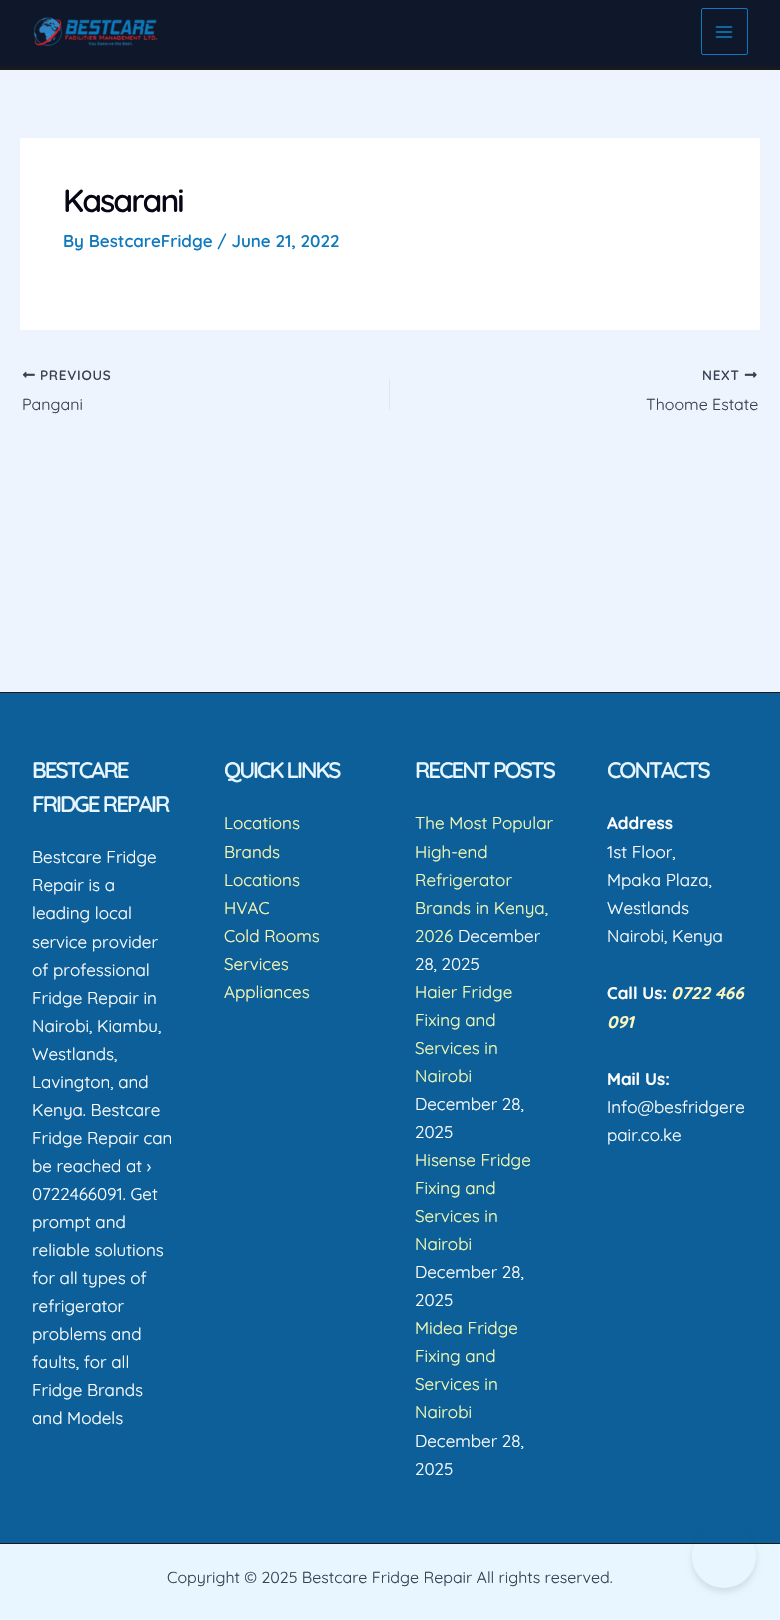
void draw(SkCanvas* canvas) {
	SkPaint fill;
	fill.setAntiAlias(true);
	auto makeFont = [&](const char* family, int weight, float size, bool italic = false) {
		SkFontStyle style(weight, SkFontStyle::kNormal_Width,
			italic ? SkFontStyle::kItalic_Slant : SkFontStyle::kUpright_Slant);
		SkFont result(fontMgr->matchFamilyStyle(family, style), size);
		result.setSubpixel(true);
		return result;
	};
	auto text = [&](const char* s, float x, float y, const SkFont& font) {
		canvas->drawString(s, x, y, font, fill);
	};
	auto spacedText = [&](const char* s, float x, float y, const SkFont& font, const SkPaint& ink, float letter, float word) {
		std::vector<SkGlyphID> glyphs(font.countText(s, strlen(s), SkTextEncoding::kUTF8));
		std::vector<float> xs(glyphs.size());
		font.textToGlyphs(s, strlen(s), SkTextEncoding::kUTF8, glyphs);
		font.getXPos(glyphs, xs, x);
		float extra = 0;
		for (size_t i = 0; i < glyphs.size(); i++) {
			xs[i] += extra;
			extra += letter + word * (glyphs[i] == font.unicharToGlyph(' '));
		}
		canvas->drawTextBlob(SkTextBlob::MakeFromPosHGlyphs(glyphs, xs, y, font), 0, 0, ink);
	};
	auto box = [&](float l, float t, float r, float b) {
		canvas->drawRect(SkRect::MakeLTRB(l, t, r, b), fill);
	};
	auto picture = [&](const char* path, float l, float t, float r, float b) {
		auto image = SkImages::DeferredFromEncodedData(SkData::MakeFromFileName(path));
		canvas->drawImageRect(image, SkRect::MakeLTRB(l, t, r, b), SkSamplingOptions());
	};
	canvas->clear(0xFFEDF4FE);
	fill.setColor(0xFF0F172A);
	box(0, 0, 780, 67);
	fill.setColor(0xFF1A1A1A);
	box(0, 67, 780, 70);
	picture("image0.png", 33, 17, 158, 46);
	fill.setStyle(SkPaint::kStroke_Style);
	fill.setStrokeWidth(1);
	fill.setColor(0xFF0F79BE);
	canvas->drawRoundRect(SkRect::MakeLTRB(701.5f, 8.5f, 747.5f, 54.5f), 1.5f, 1.5f, fill);
	picture("image1.png", 715, 26, 733, 38);
	fill.setStyle(SkPaint::kFill_Style);
	fill.setColor(0xFFFFFFFF);
	box(20, 138, 760, 330);
	picture("image2.png", 22, 371, 35, 378);
	fill.setColor(0xFFE1E8ED);
	box(389, 379, 390, 410);
	picture("image3.png", 744, 371, 757, 378);
	fill.setColor(0xFF0C5F98);
	box(0, 693, 780, 1543);
	fill.setColor(0xFF1A1A1A);
	box(0, 692, 780, 693);
	fill.setColor(0xFFE7F6FF);
	box(0, 1544, 780, 1620);
	fill.setColor(0xFF1A1A1A);
	box(0, 1543, 780, 1544);
	canvas->save();
	canvas->clipPath(SkPathBuilder(SkPathFillType::kEvenOdd).moveTo(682, 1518).lineTo(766, 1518).lineTo(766, 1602).lineTo(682, 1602).close().moveTo(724, 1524).cubicTo(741.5f, 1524, 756, 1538.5f, 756, 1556).cubicTo(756, 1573.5f, 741.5f, 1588, 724, 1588).cubicTo(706.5f, 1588, 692, 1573.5f, 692, 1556).cubicTo(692, 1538.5f, 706.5f, 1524, 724, 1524).close().detach(), true);
	fill.setColor(0x1A000000);
	fill.setMaskFilter(SkMaskFilter::MakeBlur(kNormal_SkBlurStyle, 3));
	canvas->drawRoundRect(SkRect::MakeLTRB(692, 1528, 756, 1592), 32, 32, fill);
	fill.setMaskFilter(nullptr);
	canvas->restore();
	auto font1 = makeFont("Quicksand", 600, 32);
	fill.setColor(0xFF070614);
	spacedText("Kasarani", 63, 212, font1, fill, -2, 0);
	auto font2 = makeFont("Quicksand", 600, 17);
	fill.setColor(0xFF0F79BE);
	text("By BestcareFridge / June 21, 2022", 63, 247, font2);
	auto font3 = makeFont("Quicksand", 600, 13.5f);
	fill.setColor(0xFF364151);
	spacedText("PREVIOUS", 40, 380, font3, fill, 0.75f, 0);
	auto font4 = makeFont("Quicksand", 400, 16);
	text("Pangani", 22, 410, font4);
	spacedText("NEXT", 702, 380, font3, fill, 0.75f, 0);
	text("Thoome Estate", 646, 410, font4);
	auto font5 = makeFont("Quicksand", 600, 22.5f);
	fill.setColor(0xFFE7F6FF);
	spacedText("BESTCARE", 32, 778, font5, fill, -2, 0);
	spacedText("FRIDGE REPAIR", 32, 812, font5, fill, -2, 0);
	auto font6 = makeFont("Quicksand", 400, 17);
	fill.setColor(0xFFFFFFFF);
	text("Bestcare Fridge", 32, 863, font6);
	text("Repair is a", 32, 891, font6);
	text("leading local", 32, 919, font6);
	text("service provider", 32, 948, font6);
	text("of professional", 32, 976, font6);
	text("Fridge Repair in", 32, 1004, font6);
	text("Nairobi, Kiambu,", 32, 1032, font6);
	text("Westlands,", 32, 1060, font6);
	text("Lavington, and", 32, 1088, font6);
	text("Kenya. Bestcare", 32, 1116, font6);
	text("Fridge Repair can", 32, 1144, font6);
	text("be reached at ›", 32, 1172, font6);
	text("0722466091. Get", 32, 1200, font6);
	text("prompt and", 32, 1228, font6);
	text("reliable solutions", 32, 1256, font6);
	text("for all types of", 32, 1284, font6);
	text("refrigerator", 32, 1312, font6);
	text("problems and", 32, 1340, font6);
	text("faults, for all", 32, 1368, font6);
	text("Fridge Brands", 32, 1396, font6);
	text("and Models", 32, 1424, font6);
	fill.setColor(0xFFE7F6FF);
	spacedText("QUICK LINKS", 224, 778, font5, fill, -2, 0);
	fill.setColor(0xFFFFFAB2);
	text("Locations", 224, 829, font6);
	text("Brands", 224, 858, font6);
	text("Locations", 224, 886, font6);
	text("HVAC", 224, 914, font6);
	text("Cold Rooms", 224, 942, font6);
	text("Services", 224, 970, font6);
	text("Appliances", 224, 998, font6);
	fill.setColor(0xFFE7F6FF);
	spacedText("RECENT POSTS", 415, 778, font5, fill, -2, 0);
	fill.setColor(0xFFF5FCB5);
	text("The Most Popular", 415, 829, font6);
	text("High-end", 415, 858, font6);
	text("Refrigerator", 415, 886, font6);
	text("Brands in Kenya,", 415, 914, font6);
	text("2026", 415, 942, font6);
	fill.setColor(0xFFFFFFFF);
	text("December", 458, 942, font6);
	text("28, 2025", 415, 970, font6);
	fill.setColor(0xFFF5FCB5);
	text("Haier Fridge", 415, 998, font6);
	text("Fixing and", 415, 1026, font6);
	text("Services in", 415, 1054, font6);
	text("Nairobi", 415, 1082, font6);
	fill.setColor(0xFFFFFFFF);
	text("December 28,", 415, 1110, font6);
	text("2025", 415, 1138, font6);
	fill.setColor(0xFFF5FCB5);
	text("Hisense Fridge", 415, 1166, font6);
	text("Fixing and", 415, 1194, font6);
	text("Services in", 415, 1222, font6);
	text("Nairobi", 415, 1250, font6);
	fill.setColor(0xFFFFFFFF);
	text("December 28,", 415, 1278, font6);
	text("2025", 415, 1306, font6);
	fill.setColor(0xFFF5FCB5);
	text("Midea Fridge", 415, 1334, font6);
	text("Fixing and", 415, 1362, font6);
	text("Services in", 415, 1390, font6);
	text("Nairobi", 415, 1418, font6);
	fill.setColor(0xFFFFFFFF);
	text("December 28,", 415, 1447, font6);
	text("2025", 415, 1475, font6);
	fill.setColor(0xFFE7F6FF);
	spacedText("CONTACTS", 607, 778, font5, fill, -2, 0);
	auto font7 = makeFont("Quicksand", 700, 17);
	fill.setColor(0xFFFFFFFF);
	text("Address", 607, 829, font7);
	text("1st Floor,", 607, 858, font6);
	text("Mpaka Plaza,", 607, 886, font6);
	text("Westlands", 607, 914, font6);
	text("Nairobi, Kenya", 607, 942, font6);
	text("Call Us:", 607, 999, font7);
	auto font8 = makeFont("Quicksand", 700, 17, true);
	fill.setColor(0xFFFFF8C1);
	text("0722 466", 671, 999, font8);
	text("091", 607, 1028, font8);
	fill.setColor(0xFFFFFFFF);
	text("Mail Us:", 607, 1085, font7);
	text("Info@besfridgere", 607, 1113, font6);
	text("pair.co.ke", 607, 1141, font6);
	fill.setColor(0xFF364151);
	text("Copyright © 2025 Bestcare Fridge Repair All rights reserved.", 167, 1583, font4);
}
